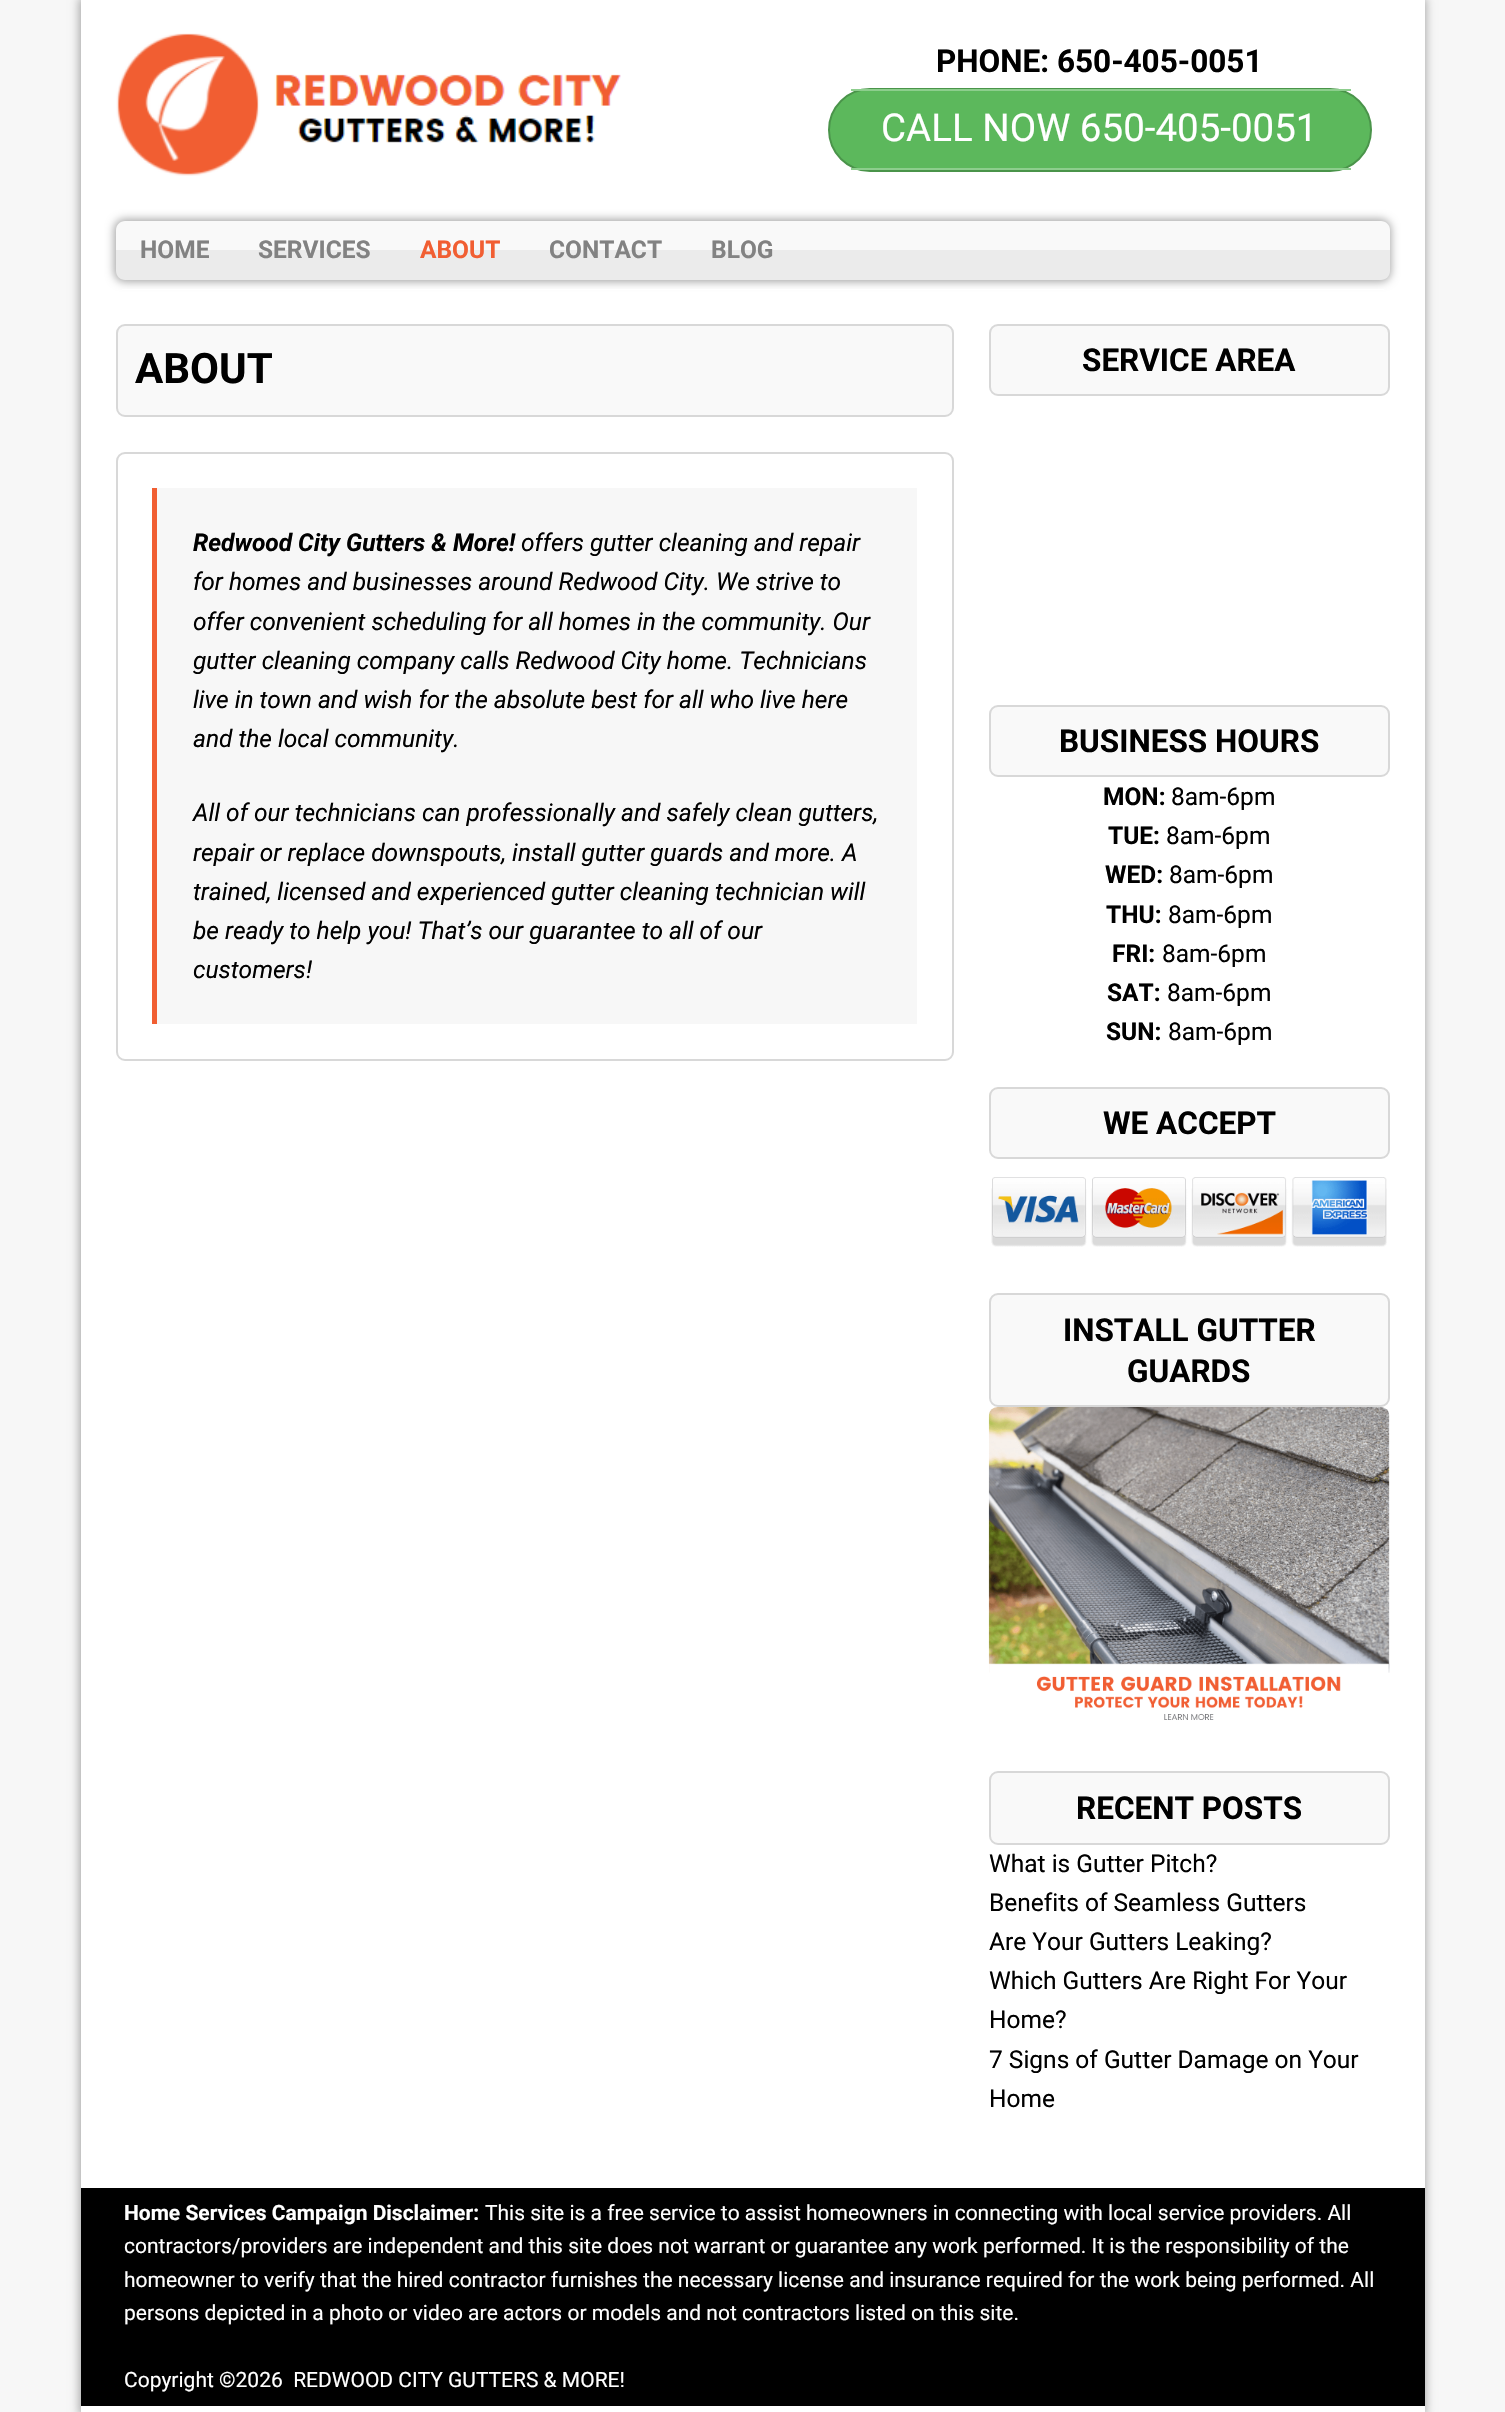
void draw(SkCanvas* canvas) {
	SkPaint fill;
	fill.setAntiAlias(true);
	auto makeFont = [&](const char* family, int weight, float size, bool italic = false) {
		SkFontStyle style(weight, SkFontStyle::kNormal_Width,
			italic ? SkFontStyle::kItalic_Slant : SkFontStyle::kUpright_Slant);
		SkFont result(fontMgr->matchFamilyStyle(family, style), size);
		result.setSubpixel(true);
		return result;
	};
	auto text = [&](const char* s, float x, float y, const SkFont& font) {
		canvas->drawString(s, x, y, font, fill);
	};
	auto box = [&](float l, float t, float r, float b) {
		canvas->drawRect(SkRect::MakeLTRB(l, t, r, b), fill);
	};
	auto picture = [&](const char* path, float l, float t, float r, float b) {
		auto image = SkImages::DeferredFromEncodedData(SkData::MakeFromFileName(path));
		canvas->drawImageRect(image, SkRect::MakeLTRB(l, t, r, b), SkSamplingOptions());
	};
	canvas->clear(0xFFF7F7F7);
	fill.setColor(0xFFA8A8A8);
	fill.setMaskFilter(SkMaskFilter::MakeBlur(kNormal_SkBlurStyle, 4.5f));
	canvas->drawRect(SkRect::MakeLTRB(79, -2, 1426, 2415), fill);
	fill.setMaskFilter(nullptr);
	fill.setColor(0xFFFFFFFF);
	box(81, 0, 1425, 2412);
	picture("image0.png", 116, 33, 621, 176);
	fill.setColor(0xFF5CB85C);
	canvas->drawRoundRect(SkRect::MakeLTRB(829, 89, 1371, 171), 41, 41, fill);
	fill.setStyle(SkPaint::kStroke_Style);
	fill.setStrokeWidth(2);
	fill.setColor(0xFF4A944A);
	canvas->drawRoundRect(SkRect::MakeLTRB(829, 89, 1371, 171), 41, 41, fill);
	fill.setStyle(SkPaint::kFill_Style);
	fill.setColor(0xFF8DCE8D);
	box(851, 89, 1351, 91);
	box(851, 168, 1351, 170);
	fill.setColor(0xFFA8A8A8);
	fill.setMaskFilter(SkMaskFilter::MakeBlur(kNormal_SkBlurStyle, 4.5f));
	canvas->drawRoundRect(SkRect::MakeLTRB(114, 219, 1391, 282), 11, 11, fill);
	fill.setMaskFilter(nullptr);
	fill.setColor(0xFFF9F9F9);
	canvas->drawPath(SkPathBuilder().moveTo(125, 221).lineTo(1381, 221).cubicTo(1386, 221, 1390, 225, 1390, 230).lineTo(1390, 250).lineTo(116, 250).lineTo(116, 230).cubicTo(116, 225, 120, 221, 125, 221).close().detach(), fill);
	fill.setColor(0xFFEBEBEB);
	canvas->drawPath(SkPathBuilder().moveTo(116, 250).lineTo(1390, 250).lineTo(1390, 271).cubicTo(1390, 276, 1386, 280, 1381, 280).lineTo(125, 280).cubicTo(120, 280, 116, 276, 116, 271).close().detach(), fill);
	fill.setColor(0xFFFFFFFF);
	box(122, 289, 1384, 290);
	fill.setColor(0xFFF9F9F9);
	canvas->drawRoundRect(SkRect::MakeLTRB(117, 325, 953, 416), 8, 8, fill);
	fill.setStyle(SkPaint::kStroke_Style);
	fill.setColor(0xFFD8D8D8);
	canvas->drawRoundRect(SkRect::MakeLTRB(117, 325, 953, 416), 8, 8, fill);
	canvas->drawRoundRect(SkRect::MakeLTRB(117, 453, 953, 1060), 8, 8, fill);
	fill.setStyle(SkPaint::kFill_Style);
	fill.setColor(0xFFF7F7F7);
	box(157, 488, 917, 1024);
	fill.setColor(0xFFF15E32);
	box(152, 488, 157, 1024);
	fill.setColor(0xFFF9F9F9);
	canvas->drawRoundRect(SkRect::MakeLTRB(990, 325, 1389, 395), 8, 8, fill);
	fill.setStyle(SkPaint::kStroke_Style);
	fill.setColor(0xFFD8D8D8);
	canvas->drawRoundRect(SkRect::MakeLTRB(990, 325, 1389, 395), 8, 8, fill);
	fill.setStyle(SkPaint::kFill_Style);
	fill.setColor(0xFFF9F9F9);
	canvas->drawRoundRect(SkRect::MakeLTRB(990, 706, 1389, 776), 8, 8, fill);
	fill.setStyle(SkPaint::kStroke_Style);
	fill.setColor(0xFFD8D8D8);
	canvas->drawRoundRect(SkRect::MakeLTRB(990, 706, 1389, 776), 8, 8, fill);
	fill.setStyle(SkPaint::kFill_Style);
	fill.setColor(0xFFF9F9F9);
	canvas->drawRoundRect(SkRect::MakeLTRB(990, 1088, 1389, 1158), 8, 8, fill);
	fill.setStyle(SkPaint::kStroke_Style);
	fill.setColor(0xFFD8D8D8);
	canvas->drawRoundRect(SkRect::MakeLTRB(990, 1088, 1389, 1158), 8, 8, fill);
	picture("image1.png", 991, 1177, 1387, 1247);
	fill.setStyle(SkPaint::kFill_Style);
	fill.setColor(0xFFF9F9F9);
	canvas->drawRoundRect(SkRect::MakeLTRB(990, 1294, 1389, 1406), 8, 8, fill);
	fill.setStyle(SkPaint::kStroke_Style);
	fill.setColor(0xFFD8D8D8);
	canvas->drawRoundRect(SkRect::MakeLTRB(990, 1294, 1389, 1406), 8, 8, fill);
	picture("image2.png", 988, 1407, 1390, 1720);
	fill.setStyle(SkPaint::kFill_Style);
	fill.setColor(0xFFF9F9F9);
	canvas->drawRoundRect(SkRect::MakeLTRB(990, 1772, 1389, 1844), 8, 8, fill);
	fill.setStyle(SkPaint::kStroke_Style);
	fill.setColor(0xFFD8D8D8);
	canvas->drawRoundRect(SkRect::MakeLTRB(990, 1772, 1389, 1844), 8, 8, fill);
	fill.setStyle(SkPaint::kFill_Style);
	fill.setColor(0xFF000000);
	box(81, 2188, 1425, 2406);
	auto font1 = makeFont("Roboto", 700, 31.5f);
	text("PHONE: 650-405-0051", 936, 72, font1);
	auto font2 = makeFont("Roboto", 400, 38.5f);
	fill.setColor(0xFFFFFFFF);
	text("CALL NOW 650-405-0051", 881, 141, font2);
	auto font3 = makeFont("Roboto", 700, 24.5f);
	fill.setColor(0xFF828282);
	text("HOME", 140, 258, font3);
	text("SERVICES", 258, 258, font3);
	fill.setColor(0xFFF15E32);
	text("ABOUT", 420, 258, font3);
	fill.setColor(0xFF828282);
	text("CONTACT", 549, 258, font3);
	text("BLOG", 711, 258, font3);
	auto font4 = makeFont("Roboto", 700, 42);
	fill.setColor(0xFF000000);
	text("ABOUT", 135, 383, font4);
	auto font5 = makeFont("Roboto", 700, 24.5f, true);
	text("Redwood City Gutters & More!", 193, 551, font5);
	auto font6 = makeFont("Roboto", 400, 24.5f, true);
	text("offers gutter cleaning and repair", 521, 551, font6);
	text("for homes and businesses around Redwood City. We strive to", 193, 590, font6);
	text("offer convenient scheduling for all homes in the community. Our", 193, 630, font6);
	text("gutter cleaning company calls Redwood City home. Technicians", 193, 669, font6);
	text("live in town and wish for the absolute best for all who live here", 193, 708, font6);
	text("and the local community.", 193, 747, font6);
	text("All of our technicians can professionally and safely clean gutters,", 193, 821, font6);
	text("repair or replace downspouts, install gutter guards and more. A", 193, 861, font6);
	text("trained, licensed and experienced gutter cleaning technician will", 193, 900, font6);
	text("be ready to help you! That’s our guarantee to all of our", 193, 939, font6);
	text("customers!", 193, 978, font6);
	text("SERVICE AREA", 1082, 371, font1);
	text("BUSINESS HOURS", 1059, 752, font1);
	text("MON:", 1103, 805, font3);
	auto font7 = makeFont("Roboto", 400, 24.5f);
	text("8am-6pm", 1171, 805, font7);
	text("TUE:", 1108, 844, font3);
	text("8am-6pm", 1166, 844, font7);
	text("WED:", 1105, 883, font3);
	text("8am-6pm", 1169, 883, font7);
	text("THU:", 1106, 923, font3);
	text("8am-6pm", 1168, 923, font7);
	text("FRI:", 1112, 962, font3);
	text("8am-6pm", 1162, 962, font7);
	text("SAT:", 1107, 1001, font3);
	text("8am-6pm", 1167, 1001, font7);
	text("SUN:", 1106, 1040, font3);
	text("8am-6pm", 1168, 1040, font7);
	text("WE ACCEPT", 1103, 1134, font1);
	text("INSTALL GUTTER", 1063, 1341, font1);
	text("GUARDS", 1127, 1382, font1);
	text("RECENT POSTS", 1076, 1819, font1);
	text("What is Gutter Pitch?", 989, 1872, font7);
	text("Benefits of Seamless Gutters", 989, 1911, font7);
	text("Are Your Gutters Leaking?", 989, 1950, font7);
	text("Which Gutters Are Right For Your", 989, 1989, font7);
	text("Home?", 989, 2028, font7);
	text("7 Signs of Gutter Damage on Your", 989, 2068, font7);
	text("Home", 989, 2107, font7);
	auto font8 = makeFont("Roboto", 700, 21);
	fill.setColor(0xFFFFFFFF);
	text("Home Services Campaign Disclaimer:", 124, 2220, font8);
	auto font9 = makeFont("Roboto", 400, 21);
	text("This site is a free service to assist homeowners in connecting with local service providers. All", 485, 2220, font9);
	text("contractors/providers are independent and this site does not warrant or guarantee any work performed. It is the responsibility of the", 124, 2253, font9);
	text("homeowner to verify that the hired contractor furnishes the necessary license and insurance required for the work being performed. All", 124, 2287, font9);
	text("persons depicted in a photo or video are actors or models and not contractors listed on this site.", 124, 2320, font9);
	text("Copyright ©2026  REDWOOD CITY GUTTERS & MORE!", 124, 2387, font9);
}
